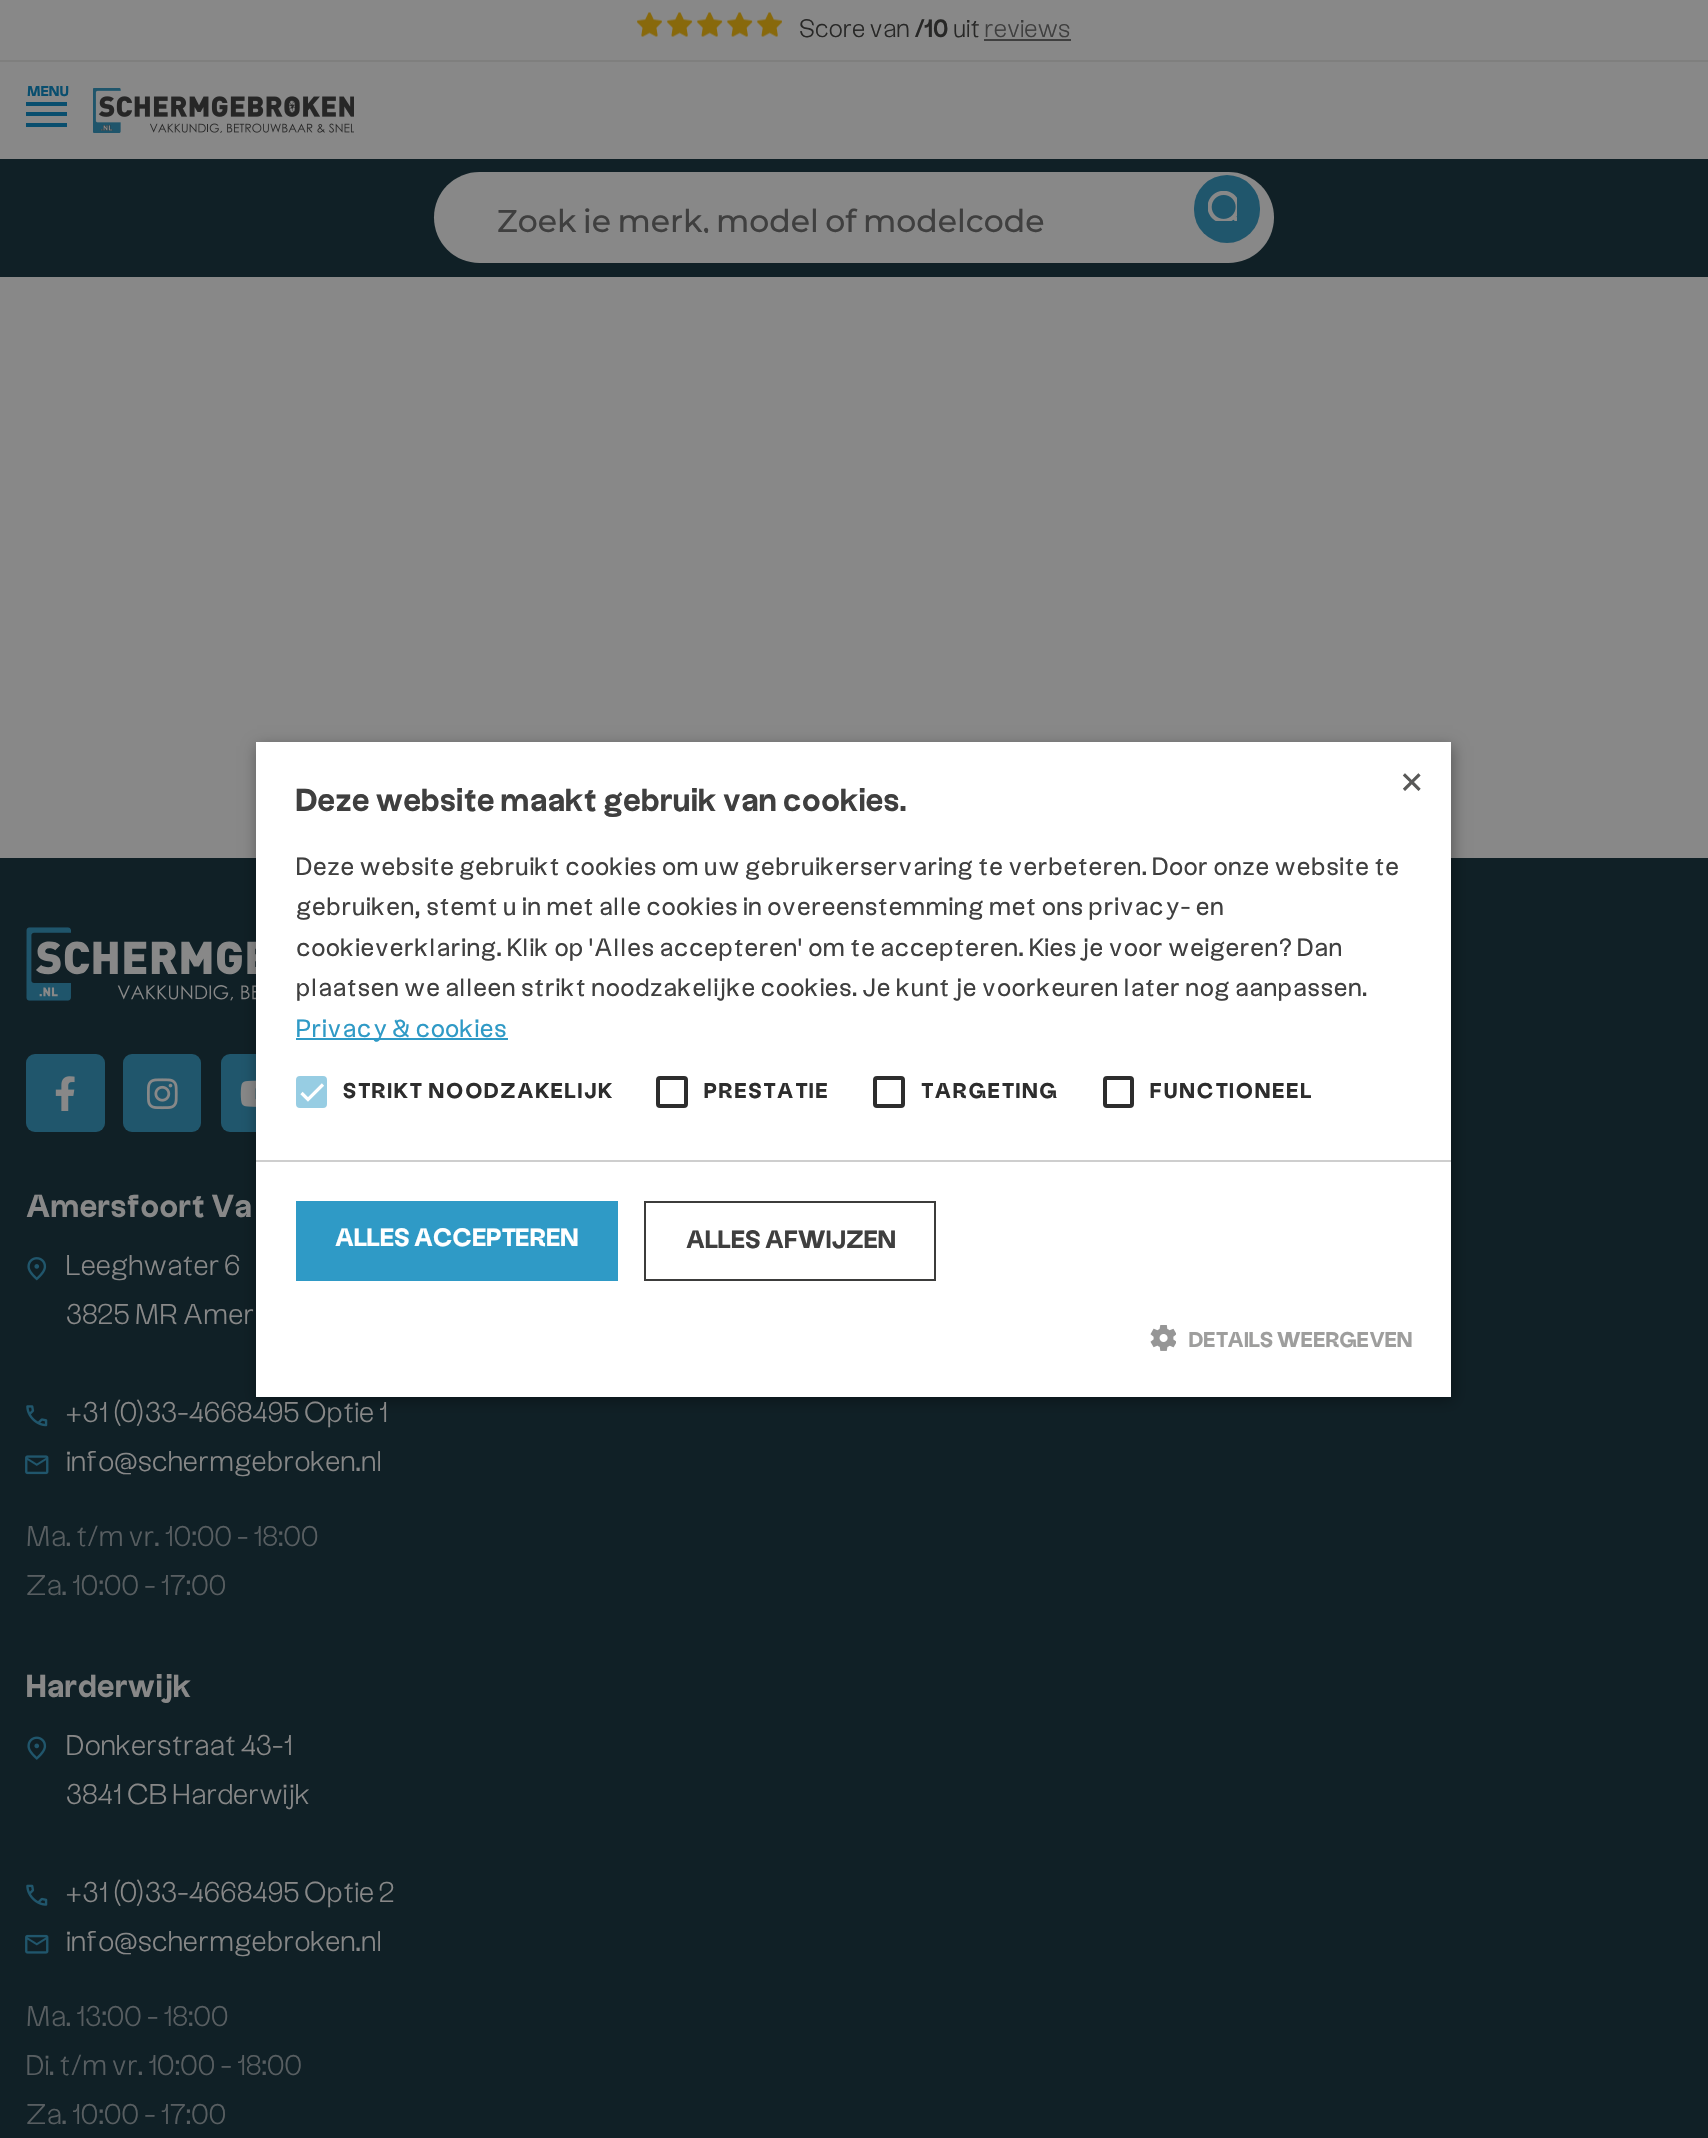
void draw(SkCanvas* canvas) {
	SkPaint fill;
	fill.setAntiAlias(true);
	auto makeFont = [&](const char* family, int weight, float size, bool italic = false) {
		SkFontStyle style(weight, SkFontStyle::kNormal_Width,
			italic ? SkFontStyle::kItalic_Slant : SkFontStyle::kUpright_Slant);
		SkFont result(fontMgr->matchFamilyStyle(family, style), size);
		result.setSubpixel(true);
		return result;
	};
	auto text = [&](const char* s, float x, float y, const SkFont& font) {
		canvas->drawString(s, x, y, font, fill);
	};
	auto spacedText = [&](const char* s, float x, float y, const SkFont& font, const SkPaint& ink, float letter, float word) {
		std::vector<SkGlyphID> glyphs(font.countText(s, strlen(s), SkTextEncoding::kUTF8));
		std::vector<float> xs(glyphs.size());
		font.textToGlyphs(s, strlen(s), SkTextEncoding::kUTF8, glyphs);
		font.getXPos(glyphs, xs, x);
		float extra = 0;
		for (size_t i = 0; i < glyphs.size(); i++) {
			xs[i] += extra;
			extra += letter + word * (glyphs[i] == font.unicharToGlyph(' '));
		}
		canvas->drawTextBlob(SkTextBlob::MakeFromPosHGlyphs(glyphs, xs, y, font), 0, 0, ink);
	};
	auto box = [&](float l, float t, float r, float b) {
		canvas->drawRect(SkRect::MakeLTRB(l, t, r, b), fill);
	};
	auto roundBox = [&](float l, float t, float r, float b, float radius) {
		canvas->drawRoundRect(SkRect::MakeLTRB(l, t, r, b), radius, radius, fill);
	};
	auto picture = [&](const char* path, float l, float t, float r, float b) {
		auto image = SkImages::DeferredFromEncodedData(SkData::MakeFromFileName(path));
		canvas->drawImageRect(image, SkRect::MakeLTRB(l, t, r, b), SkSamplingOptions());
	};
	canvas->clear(0xFF888888);
	picture("image0.png", 637, 12, 782, 37);
	fill.setColor(0xFF3F3F3F);
	box(984, 39, 1071, 41);
	fill.setColor(0xFF7F7F7E);
	box(0, 60, 1708, 62);
	fill.setColor(0xFF094E6E);
	box(26, 102, 67, 106);
	box(26, 112, 67, 116);
	box(26, 123, 67, 127);
	picture("image1.png", 93, 88, 354, 133);
	fill.setColor(0xFF102026);
	box(0, 159, 1708, 277);
	fill.setColor(0xFF888888);
	roundBox(434, 172, 1274, 263, 45.5f);
	fill.setColor(0xFF20566C);
	roundBox(1194, 175, 1260, 243, 33);
	picture("image2.png", 1208, 191, 1237, 221);
	fill.setColor(0xFF102026);
	box(0, 858, 1708, 2138);
	picture("image4.png", 26, 927, 256, 1001);
	fill.setColor(0xFF20566C);
	roundBox(221, 1054, 299, 1132, 9);
	picture("image7.png", 240, 1080, 256, 1107);
	fill.setColor(0x59000000);
	fill.setMaskFilter(SkMaskFilter::MakeBlur(kNormal_SkBlurStyle, 7));
	canvas->drawRect(SkRect::MakeLTRB(257, 746, 1453, 1400), fill);
	fill.setMaskFilter(nullptr);
	fill.setColor(0xFFFFFFFF);
	box(256, 742, 1451, 1397);
	fill.setColor(0xFF2F9AC6);
	box(296, 1038, 508, 1040);
	fill.setColor(0xFF97CDE3);
	canvas->drawRoundRect(SkRect::MakeLTRB(298, 1078, 325, 1106), 2, 2, fill);
	fill.setStyle(SkPaint::kStroke_Style);
	fill.setStrokeWidth(4);
	canvas->drawRoundRect(SkRect::MakeLTRB(298, 1078, 325, 1106), 2, 2, fill);
	fill.setStrokeWidth(3.2f);
	fill.setColor(0xFFFFFFFF);
	canvas->drawPath(SkPathBuilder().moveTo(301.5f, 1093).lineTo(308, 1099.5f).lineTo(323, 1084.5f).detach(), fill);
	fill.setStrokeWidth(4);
	fill.setColor(0xFF2D2D2D);
	canvas->drawRoundRect(SkRect::MakeLTRB(658, 1078, 686, 1106), 2, 2, fill);
	canvas->drawRoundRect(SkRect::MakeLTRB(875, 1078, 903, 1106), 2, 2, fill);
	canvas->drawRoundRect(SkRect::MakeLTRB(1105, 1078, 1132, 1106), 2, 2, fill);
	fill.setStyle(SkPaint::kFill_Style);
	fill.setColor(0xFFCECECE);
	box(256, 1160, 1451, 1162);
	fill.setColor(0xFF2F9AC6);
	box(296, 1201, 618, 1281);
	fill.setStyle(SkPaint::kStroke_Style);
	fill.setStrokeWidth(2);
	fill.setColor(0xFF3C3C3B);
	canvas->drawRect(SkRect::MakeLTRB(645, 1202, 935, 1280), fill);
	picture("image3.png", 1150, 1325, 1176, 1351);
	fill.setStyle(SkPaint::kFill_Style);
	fill.setColor(0xFF20566C);
	roundBox(26, 1054, 105, 1132, 9);
	picture("image5.png", 55, 1076, 75, 1111);
	roundBox(123, 1054, 201, 1132, 9);
	picture("image6.png", 147, 1078, 178, 1110);
	picture("image8.png", 27, 1257, 47, 1281);
	picture("image9.png", 26, 1405, 48, 1427);
	picture("image10.png", 25, 1455, 49, 1475);
	picture("image11.png", 27, 1736, 47, 1760);
	picture("image12.png", 26, 1884, 48, 1906);
	picture("image13.png", 25, 1934, 49, 1954);
	auto font1 = makeFont("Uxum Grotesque", 300, 24.5f);
	fill.setColor(0xFF272726);
	text("Score van", 799, 37, font1);
	auto font2 = makeFont("Uxum Grotesque", 500, 24.5f);
	text("/10", 914, 37, font2);
	text("uit", 953, 37, font1);
	fill.setColor(0xFF3F3F3F);
	text("reviews", 984, 37, font1);
	auto font3 = makeFont("Uxum Grotesque", 700, 14);
	fill.setColor(0xFF094E6E);
	text("MENU", 27, 96, font3);
	canvas->save();
	canvas->clipRect(SkRect::MakeLTRB(497, 201, 1134, 233));
	auto font4 = makeFont("Montserrat", 500, 31.5f);
	fill.setColor(0xFF3F3F3F);
	spacedText("Zoek je merk, model of modelcode", 497, 232, font4, fill, 0, -2);
	canvas->restore();
	auto font5 = makeFont("Uxum Grotesque", 300, 52);
	fill.setColor(0xFF595958);
	text("×", 1399, 795, font5);
	auto font6 = makeFont("Uxum Grotesque", 700, 31.5f);
	fill.setColor(0xFF3F3F3F);
	text("Deze website maakt gebruik van cookies.", 296, 811, font6);
	auto font7 = makeFont("Uxum Grotesque", 400, 24.5f);
	spacedText("Deze website gebruikt cookies om uw gebruikerservaring te verbeteren. Door onze website te", 296, 875, font7, fill, 0.53f, 0);
	spacedText("gebruiken, stemt u in met alle cookies in overeenstemming met ons privacy- en", 296, 915, font7, fill, 0.53f, 0);
	spacedText("cookieverklaring. Klik op 'Alles accepteren' om te accepteren. Kies je voor weigeren? Dan", 296, 956, font7, fill, 0.53f, 0);
	spacedText("plaatsen we alleen strikt noodzakelijke cookies. Je kunt je voorkeuren later nog aanpassen.", 296, 996, font7, fill, 0.53f, 0);
	fill.setColor(0xFF2F9AC6);
	spacedText("Privacy & cookies", 296, 1037, font7, fill, 0.53f, 0);
	auto font8 = makeFont("Uxum Grotesque", 700, 21);
	fill.setColor(0xFF2D2D2D);
	spacedText("STRIKT NOODZAKELIJK", 343, 1098, font8, fill, 1.75f, 0);
	spacedText("PRESTATIE", 704, 1098, font8, fill, 1.75f, 0);
	spacedText("TARGETING", 921, 1098, font8, fill, 1.75f, 0);
	spacedText("FUNCTIONEEL", 1150, 1098, font8, fill, 1.75f, 0);
	auto font9 = makeFont("Uxum Grotesque", 700, 24.5f);
	fill.setColor(0xFFFFFFFF);
	text("ALLES ACCEPTEREN", 335, 1246, font9);
	fill.setColor(0xFF3F3F3F);
	text("ALLES AFWIJZEN", 686, 1248, font9);
	fill.setColor(0xFF9E9E9D);
	text("DETAILS WEERGEVEN", 1189, 1347, font8);
	fill.setColor(0xFF888888);
	text("Amersfoort Va", 26, 1217, font6);
	auto font10 = makeFont("Uxum Grotesque", 300, 28);
	text("Leeghwater 6", 66, 1275, font10);
	text("3825 MR Amer", 66, 1324, font10);
	text("+31 (0)33-4668495 Optie 1", 66, 1422, font10);
	text("info@schermgebroken.nl", 66, 1471, font10);
	fill.setColor(0xFF585E61);
	text("Ma. t/m vr. 10:00 - 18:00", 26, 1546, font10);
	text("Za. 10:00 - 17:00", 26, 1595, font10);
	fill.setColor(0xFF888888);
	text("Harderwijk", 26, 1697, font6);
	text("Donkerstraat 43-1", 66, 1755, font10);
	text("3841 CB Harderwijk", 66, 1804, font10);
	text("+31 (0)33-4668495 Optie 2", 66, 1902, font10);
	text("info@schermgebroken.nl", 66, 1951, font10);
	fill.setColor(0xFF585E61);
	text("Ma. 13:00 - 18:00", 26, 2026, font10);
	text("Di. t/m vr. 10:00 - 18:00", 26, 2075, font10);
	text("Za. 10:00 - 17:00", 26, 2124, font10);
}
